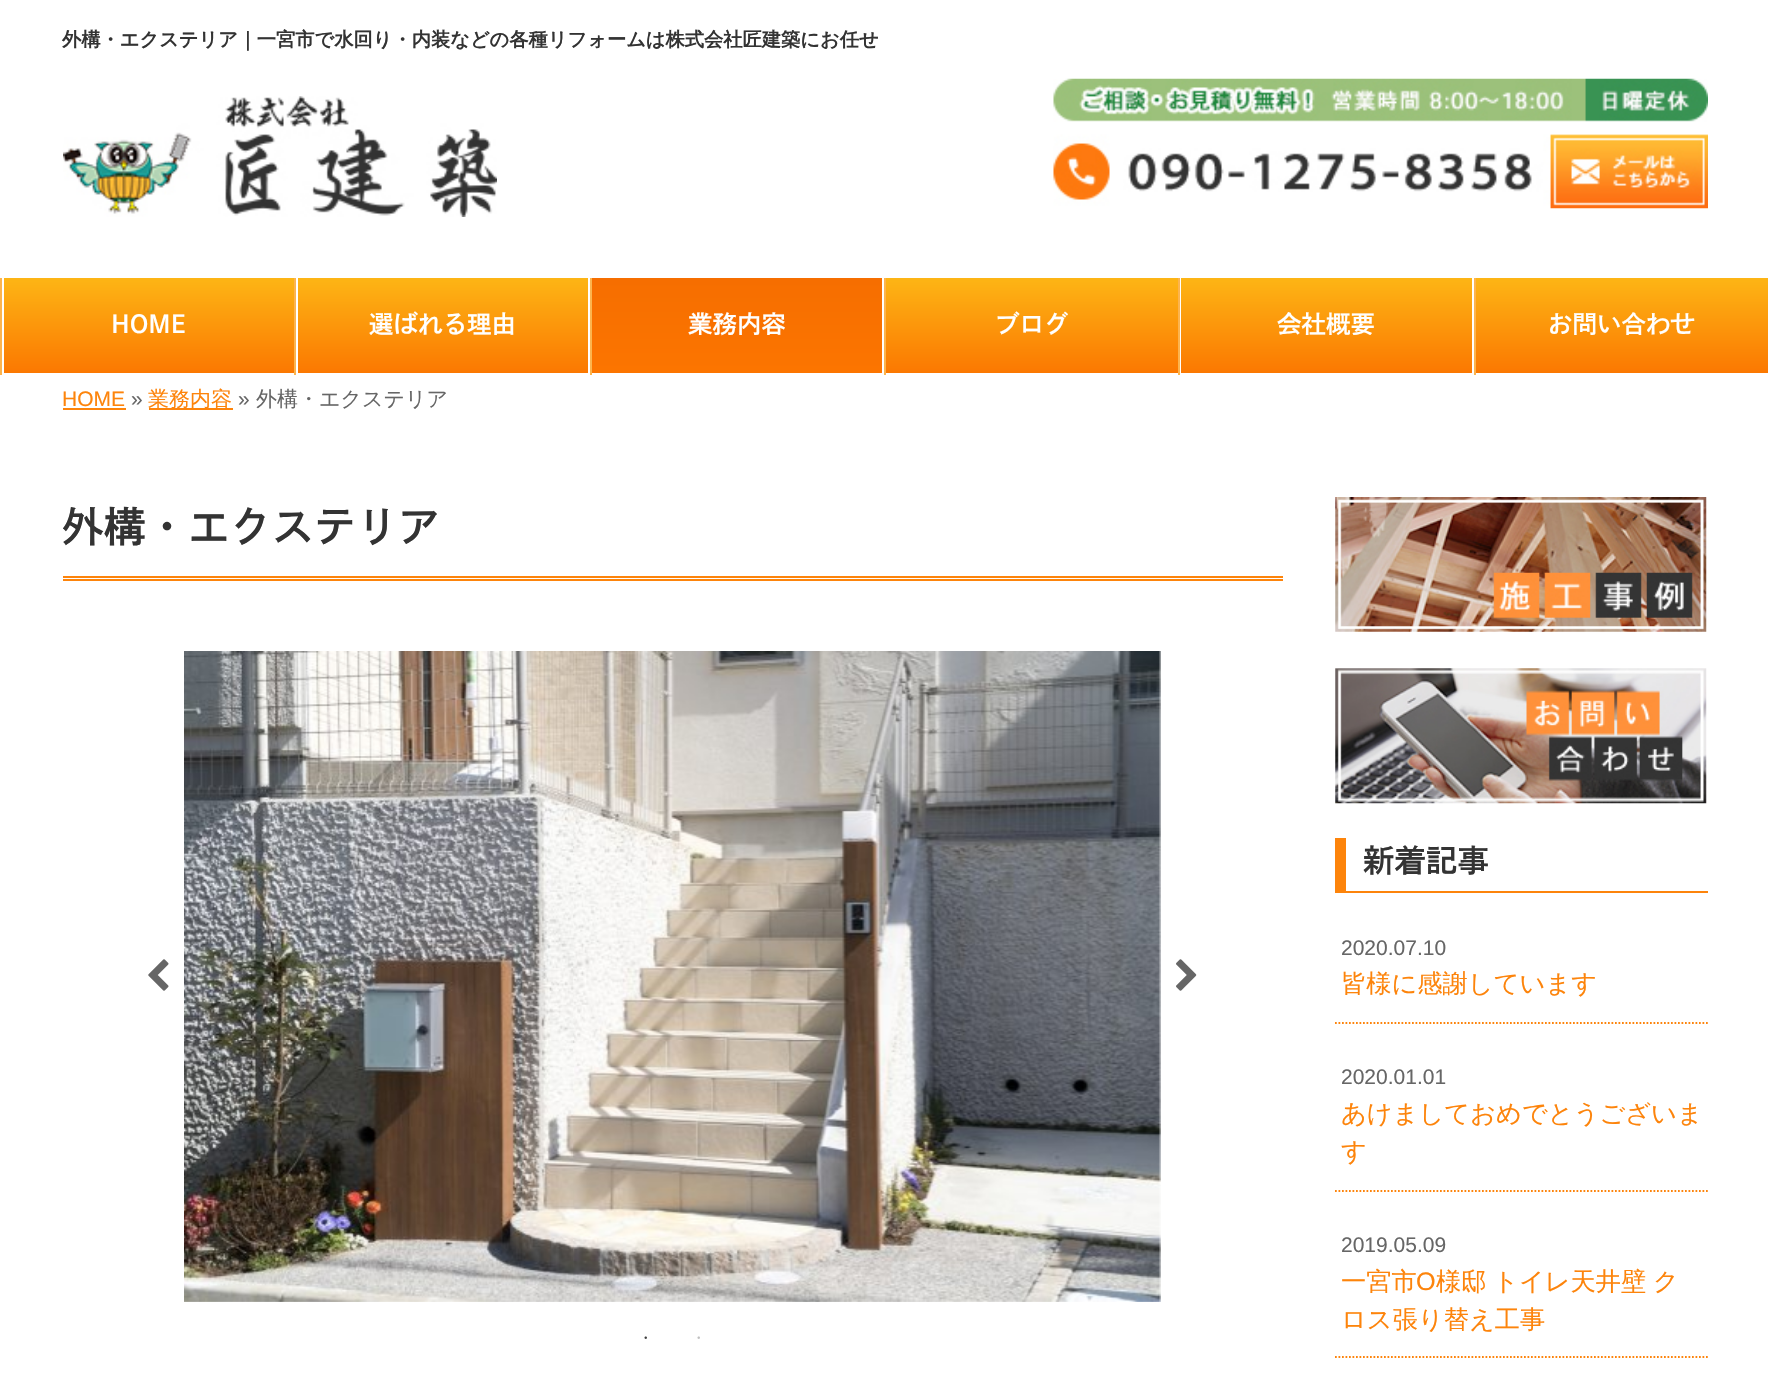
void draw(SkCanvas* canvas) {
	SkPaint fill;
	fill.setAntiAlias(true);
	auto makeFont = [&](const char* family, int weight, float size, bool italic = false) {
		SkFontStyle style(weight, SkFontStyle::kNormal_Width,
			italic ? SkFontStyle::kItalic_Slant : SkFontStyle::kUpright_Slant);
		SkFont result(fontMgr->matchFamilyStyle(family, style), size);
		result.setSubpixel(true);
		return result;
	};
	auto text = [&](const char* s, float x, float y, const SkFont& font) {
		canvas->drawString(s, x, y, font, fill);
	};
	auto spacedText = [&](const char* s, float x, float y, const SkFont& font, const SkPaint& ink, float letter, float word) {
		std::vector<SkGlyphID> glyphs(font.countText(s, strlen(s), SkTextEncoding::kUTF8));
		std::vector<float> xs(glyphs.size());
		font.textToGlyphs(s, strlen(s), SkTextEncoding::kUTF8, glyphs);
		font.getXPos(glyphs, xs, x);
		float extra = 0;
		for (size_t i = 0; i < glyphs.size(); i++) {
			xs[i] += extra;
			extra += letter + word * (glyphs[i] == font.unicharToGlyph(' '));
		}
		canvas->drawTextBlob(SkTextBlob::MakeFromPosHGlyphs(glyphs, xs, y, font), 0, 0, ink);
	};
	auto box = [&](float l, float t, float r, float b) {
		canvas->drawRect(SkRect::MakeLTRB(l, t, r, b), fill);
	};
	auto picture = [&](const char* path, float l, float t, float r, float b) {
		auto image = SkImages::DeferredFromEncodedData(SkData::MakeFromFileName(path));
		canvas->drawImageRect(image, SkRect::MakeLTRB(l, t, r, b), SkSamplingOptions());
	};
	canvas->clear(0xFFFFFFFF);
	picture("image0.png", 63, 96, 497, 217);
	picture("image1.png", 1053, 78, 1708, 209);
	{
		const SkColor colors[] = {0xFFFDB515, 0xFFFB7801};
		const float stops[] = {0, 1};
		const SkPoint ends[] = {{149, 278}, {149, 373}};
		fill.setShader(SkGradientShader::MakeLinear(ends, colors, stops, 2, SkTileMode::kClamp));
		fill.setAlpha(255);
	}
	box(4, 278, 294, 373);
	fill.setShader(nullptr);
	fill.setColor(0xFFFCB44E);
	box(0, 278, 2, 375);
	box(294, 278, 296, 375);
	{
		const SkColor colors[] = {0xFFFDB515, 0xFFFB7801};
		const float stops[] = {0, 1};
		const SkPoint ends[] = {{443, 278}, {443, 373}};
		fill.setShader(SkGradientShader::MakeLinear(ends, colors, stops, 2, SkTileMode::kClamp));
		fill.setAlpha(255);
	}
	box(298, 278, 588, 373);
	fill.setShader(nullptr);
	fill.setColor(0xFFFCB44E);
	box(590, 278, 592, 375);
	{
		const SkColor colors[] = {0xFFF66E00, 0xFFFC7500};
		const float stops[] = {0, 1};
		const SkPoint ends[] = {{737, 278}, {737, 373}};
		fill.setShader(SkGradientShader::MakeLinear(ends, colors, stops, 2, SkTileMode::kClamp));
		fill.setAlpha(255);
	}
	box(592, 278, 882, 373);
	fill.setShader(nullptr);
	fill.setColor(0xFFFCB44E);
	box(884, 278, 886, 375);
	{
		const SkColor colors[] = {0xFFFDB515, 0xFFFB7801};
		const float stops[] = {0, 1};
		const SkPoint ends[] = {{1032, 278}, {1032, 373}};
		fill.setShader(SkGradientShader::MakeLinear(ends, colors, stops, 2, SkTileMode::kClamp));
		fill.setAlpha(255);
	}
	box(886, 278, 1178, 373);
	{
		const SkColor colors[] = {0xFFFDB515, 0xFFFB7801};
		const float stops[] = {0, 1};
		const SkPoint ends[] = {{1327, 278}, {1327, 373}};
		fill.setShader(SkGradientShader::MakeLinear(ends, colors, stops, 2, SkTileMode::kClamp));
		fill.setAlpha(255);
	}
	box(1181, 278, 1472, 373);
	fill.setShader(nullptr);
	fill.setColor(0xFFFCB44E);
	box(1178, 278, 1180, 375);
	{
		const SkColor colors[] = {0xFFFDB515, 0xFFFB7801};
		const float stops[] = {0, 1};
		const SkPoint ends[] = {{1621, 278}, {1621, 373}};
		fill.setShader(SkGradientShader::MakeLinear(ends, colors, stops, 2, SkTileMode::kClamp));
		fill.setAlpha(255);
	}
	box(1476, 278, 1768, 373);
	fill.setShader(nullptr);
	fill.setColor(0xFFFCB44E);
	box(1474, 278, 1476, 375);
	fill.setColor(0xFFFD840B);
	box(63, 408, 126, 410);
	box(149, 408, 233, 410);
	box(63, 576, 1283, 578);
	box(63, 579, 1283, 581);
	picture("image2.png", 148, 959, 169, 991);
	picture("image3.png", 184, 651, 1161, 1302);
	picture("image4.png", 1176, 959, 1197, 991);
	picture("image5.png", 1335, 497, 1707, 632);
	picture("image6.png", 1335, 668, 1707, 804);
	box(1346, 891, 1708, 893);
	box(1335, 838, 1346, 893);
	fill.setStyle(SkPaint::kStroke_Style);
	fill.setStrokeWidth(1.8f);
	fill.setPathEffect(SkDashPathEffect::Make({{1.75f, 1.75f}}, 0));
	canvas->drawPath(SkPathBuilder().moveTo(1335, 1023).lineTo(1708, 1023).detach(), fill);
	fill.setPathEffect(nullptr);
	fill.setPathEffect(SkDashPathEffect::Make({{1.75f, 1.75f}}, 0));
	canvas->drawPath(SkPathBuilder().moveTo(1335, 1191).lineTo(1708, 1191).detach(), fill);
	fill.setPathEffect(nullptr);
	fill.setPathEffect(SkDashPathEffect::Make({{1.75f, 1.75f}}, 0));
	canvas->drawPath(SkPathBuilder().moveTo(1335, 1357).lineTo(1708, 1357).detach(), fill);
	fill.setPathEffect(nullptr);
	auto font1 = makeFont("WenQuanYi Zen Hei", 700, 19.25f);
	fill.setStyle(SkPaint::kFill_Style);
	fill.setColor(0xFF333333);
	text("外構・エクステリア｜一宮市で水回り・内装などの各種リフォームは株式会社匠建築にお任せ", 62, 46, font1);
	auto font2 = makeFont("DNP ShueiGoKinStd", 600, 24.5f);
	fill.setColor(0xFFFFFFFF);
	text("HOME", 111, 333, font2);
	text("選ばれる理由", 369, 333, font2);
	text("業務内容", 688, 333, font2);
	text("ブログ", 995, 333, font2);
	text("会社概要", 1277, 333, font2);
	text("お問い合わせ", 1548, 333, font2);
	auto font3 = makeFont("Liberation Sans", 400, 21);
	fill.setColor(0xFFFD840B);
	text("HOME", 62, 406, font3);
	fill.setColor(0xFF666666);
	text("»", 131, 406, font3);
	auto font4 = makeFont("WenQuanYi Zen Hei", 500, 21);
	fill.setColor(0xFFFD840B);
	text("業務内容", 148, 406, font4);
	fill.setColor(0xFF666666);
	text("»", 238, 406, font3);
	text("外構・エクステリア", 256, 406, font4);
	auto font5 = makeFont("DNP ShueiGoKinStd", 600, 42);
	fill.setColor(0xFF333333);
	text("外構・エクステリア", 62, 542, font5);
	auto font6 = makeFont("Liberation Serif", 400, 10);
	fill.setColor(0xFF404040);
	text("•", 644, 1341, font6);
	fill.setColor(0xFFBFBFBF);
	text("•", 697, 1341, font6);
	auto font7 = makeFont("DNP ShueiGoKinStd", 600, 31.5f);
	fill.setColor(0xFF333333);
	text("新着記事", 1363, 872, font7);
	fill.setColor(0xFF666666);
	text("2020.07.10", 1341, 955, font3);
	auto font8 = makeFont("WenQuanYi Zen Hei", 500, 25.25f);
	fill.setColor(0xFFFD840B);
	text("皆様に感謝しています", 1341, 992, font8);
	fill.setColor(0xFF666666);
	text("2020.01.01", 1341, 1084, font3);
	fill.setColor(0xFFFD840B);
	text("あけましておめでとうございま", 1341, 1122, font8);
	text("す", 1341, 1160, font8);
	fill.setColor(0xFF666666);
	text("2019.05.09", 1341, 1252, font3);
	fill.setColor(0xFFFD840B);
	text("一宮市", 1341, 1290, font8);
	auto font9 = makeFont("Liberation Sans", 400, 25.25f);
	text("O", 1416, 1290, font9);
	spacedText("様邸 トイレ天井壁 ク", 1436, 1290, font8, fill, 0, -1);
	text("ロス張り替え工事", 1341, 1328, font8);
}
